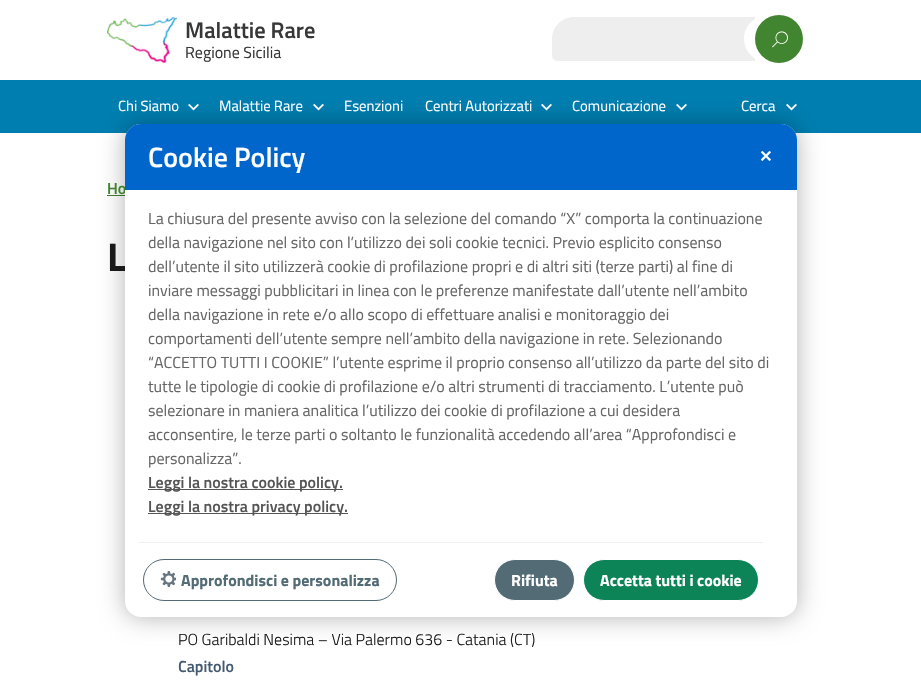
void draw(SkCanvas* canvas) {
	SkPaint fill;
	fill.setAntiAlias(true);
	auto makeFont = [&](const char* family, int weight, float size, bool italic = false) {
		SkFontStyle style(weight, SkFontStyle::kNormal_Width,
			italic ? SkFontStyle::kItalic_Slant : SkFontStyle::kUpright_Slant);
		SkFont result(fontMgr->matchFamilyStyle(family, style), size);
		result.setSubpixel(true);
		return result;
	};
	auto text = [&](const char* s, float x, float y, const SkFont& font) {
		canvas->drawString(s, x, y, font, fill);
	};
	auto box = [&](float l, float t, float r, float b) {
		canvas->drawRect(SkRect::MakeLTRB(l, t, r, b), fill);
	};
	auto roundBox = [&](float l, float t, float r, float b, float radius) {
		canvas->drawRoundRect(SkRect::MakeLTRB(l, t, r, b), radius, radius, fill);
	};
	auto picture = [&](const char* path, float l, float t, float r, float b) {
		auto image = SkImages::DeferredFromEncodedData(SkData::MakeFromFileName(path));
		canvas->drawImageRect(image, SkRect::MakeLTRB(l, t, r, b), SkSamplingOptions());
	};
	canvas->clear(0xFFFFFFFF);
	picture("image0.png", 107, 16, 177, 64);
	fill.setColor(0xFFEEEEEE);
	canvas->drawPath(SkPathBuilder().moveTo(574, 17).lineTo(755, 17).lineTo(755, 62).lineTo(558, 62).cubicTo(554.5f, 62, 552, 59.5f, 552, 56).lineTo(552, 39).cubicTo(552, 27, 562, 17, 574, 17).close().detach(), fill);
	fill.setColor(0xFFFFFFFF);
	canvas->drawPath(SkPathBuilder().moveTo(552, 55).cubicTo(552, 59, 554, 62, 558, 62).lineTo(755, 62).lineTo(755, 61).lineTo(558, 61).cubicTo(555, 61, 552, 58, 552, 55).close().detach(), fill);
	canvas->drawPath(SkPathBuilder().moveTo(768, 15).cubicTo(763, 15, 759, 16, 755, 19).cubicTo(732, 34, 748, 68, 774, 62).cubicTo(749, 57, 749, 21, 774, 16).close().detach(), fill);
	fill.setColor(0xFF428530);
	canvas->drawCircle(779, 39, 24, fill);
	picture("image1.png", 772, 31, 788, 48);
	fill.setColor(0xFF007EB0);
	box(0, 80, 921, 133);
	picture("image2.png", 188, 103, 199, 111);
	picture("image2.png", 313, 103, 324, 111);
	picture("image2.png", 541, 103, 552, 111);
	picture("image2.png", 676, 103, 687, 111);
	picture("image2.png", 786, 103, 797, 111);
	fill.setColor(0xFF41822F);
	box(107, 195, 125, 196);
	fill.setColor(0x4D000000);
	fill.setMaskFilter(SkMaskFilter::MakeBlur(kNormal_SkBlurStyle, 12));
	canvas->drawRoundRect(SkRect::MakeLTRB(125, 124, 797, 617), 16, 16, fill);
	fill.setMaskFilter(nullptr);
	auto font1 = makeFont("Titillium Web", 600, 22.5f);
	fill.setColor(0xFF373737);
	text("Malattie Rare", 185, 38, font1);
	auto font2 = makeFont("Titillium Web", 400, 16);
	text("Regione Sicilia", 185, 58, font2);
	auto font3 = makeFont("Titillium Web", 400, 14.75f);
	fill.setColor(0xFFFFFFFF);
	text("Chi Siamo", 118, 111, font3);
	text("Malattie Rare", 219, 111, font3);
	text("Esenzioni", 344, 111, font3);
	text("Centri Autorizzati", 425, 111, font3);
	text("Comunicazione", 572, 111, font3);
	text("Cerca", 741, 111, font3);
	auto font4 = makeFont("Titillium Web", 600, 16);
	fill.setColor(0xFF41822F);
	text("Ho", 107, 194, font4);
	auto font5 = makeFont("Titillium Web", 700, 40);
	fill.setColor(0xFF19191A);
	text("L", 107, 271, font5);
	auto font6 = makeFont("Titillium Web", 300, 16);
	text("PO Garibaldi Nesima – Via Palermo 636 - Catania (CT)", 178, 645, font6);
	fill.setColor(0xFF435A70);
	text("Capitolo", 178, 672, font4);
	fill.setColor(0xFFFFFFFF);
	roundBox(125, 124, 797, 617, 16);
	fill.setColor(0xFF0066CC);
	canvas->drawPath(SkPathBuilder().moveTo(141, 124).lineTo(781, 124).cubicTo(790, 124, 797, 131, 797, 140).lineTo(797, 190).lineTo(125, 190).lineTo(125, 140).cubicTo(125, 131, 132, 124, 141, 124).close().detach(), fill);
	auto font7 = makeFont("Titillium Web", 600, 28);
	fill.setColor(0xFFFFFFFF);
	text("Cookie Policy", 148, 167, font7);
	auto font8 = makeFont("DejaVu Sans", 700, 16);
	text("✕", 759, 162, font8);
	fill.setColor(0xFF666666);
	text("La chiusura del presente avviso con la selezione del comando “X” comporta la continuazione", 148, 224, font2);
	text("della navigazione nel sito con l’utilizzo dei soli cookie tecnici. Previo esplicito consenso", 148, 248, font2);
	text("dell’utente il sito utilizzerà cookie di profilazione propri e di altri siti (terze parti) al fine di", 148, 272, font2);
	text("inviare messaggi pubblicitari in linea con le preferenze manifestate dall’utente nell’ambito", 148, 296, font2);
	text("della navigazione in rete e/o allo scopo di effettuare analisi e monitoraggio dei", 148, 320, font2);
	text("comportamenti dell’utente sempre nell’ambito della navigazione in rete. Selezionando", 148, 344, font2);
	text("“ACCETTO TUTTI I COOKIE” l’utente esprime il proprio consenso all’utilizzo da parte del sito di", 148, 368, font2);
	text("tutte le tipologie di cookie di profilazione e/o altri strumenti di tracciamento. L’utente può", 148, 392, font2);
	text("selezionare in maniera analitica l’utilizzo dei cookie di profilazione a cui desidera", 148, 416, font2);
	text("acconsentire, le terze parti o soltanto le funzionalità accedendo all’area “Approfondisci e", 148, 440, font2);
	text("personalizza”.", 148, 464, font2);
	fill.setColor(0xFF555555);
	box(148, 489, 343, 490);
	text("Leggi la nostra cookie policy.", 148, 488, font4);
	box(148, 513, 348, 514);
	text("Leggi la nostra privacy policy.", 148, 512, font4);
	fill.setColor(0xFFEEEEEE);
	box(139, 542, 763, 543);
	fill.setStyle(SkPaint::kStroke_Style);
	fill.setStrokeWidth(1);
	fill.setColor(0xFF526B75);
	canvas->drawRoundRect(SkRect::MakeLTRB(143.5f, 559.5f, 396.5f, 600.5f), 20.5f, 20.5f, fill);
	picture("image3.png", 160, 571, 176, 587);
	auto font9 = makeFont("Titillium Web", 700, 16);
	fill.setStyle(SkPaint::kFill_Style);
	text("Approfondisci e personalizza", 181, 586, font9);
	canvas->drawRoundRect(SkRect::MakeLTRB(494.5f, 559.5f, 574.5f, 600.5f), 20.5f, 20.5f, fill);
	fill.setStyle(SkPaint::kStroke_Style);
	fill.setColor(0xFFFFFFFF);
	canvas->drawRoundRect(SkRect::MakeLTRB(494.5f, 559.5f, 574.5f, 600.5f), 20.5f, 20.5f, fill);
	fill.setStyle(SkPaint::kFill_Style);
	text("Rifiuta", 511, 586, font9);
	fill.setColor(0xFF0C8458);
	canvas->drawRoundRect(SkRect::MakeLTRB(583.5f, 559.5f, 758.5f, 600.5f), 20.5f, 20.5f, fill);
	fill.setStyle(SkPaint::kStroke_Style);
	fill.setColor(0xFFFFFFFF);
	canvas->drawRoundRect(SkRect::MakeLTRB(583.5f, 559.5f, 758.5f, 600.5f), 20.5f, 20.5f, fill);
	fill.setStyle(SkPaint::kFill_Style);
	text("Accetta tutti i cookie", 600, 586, font9);
}
